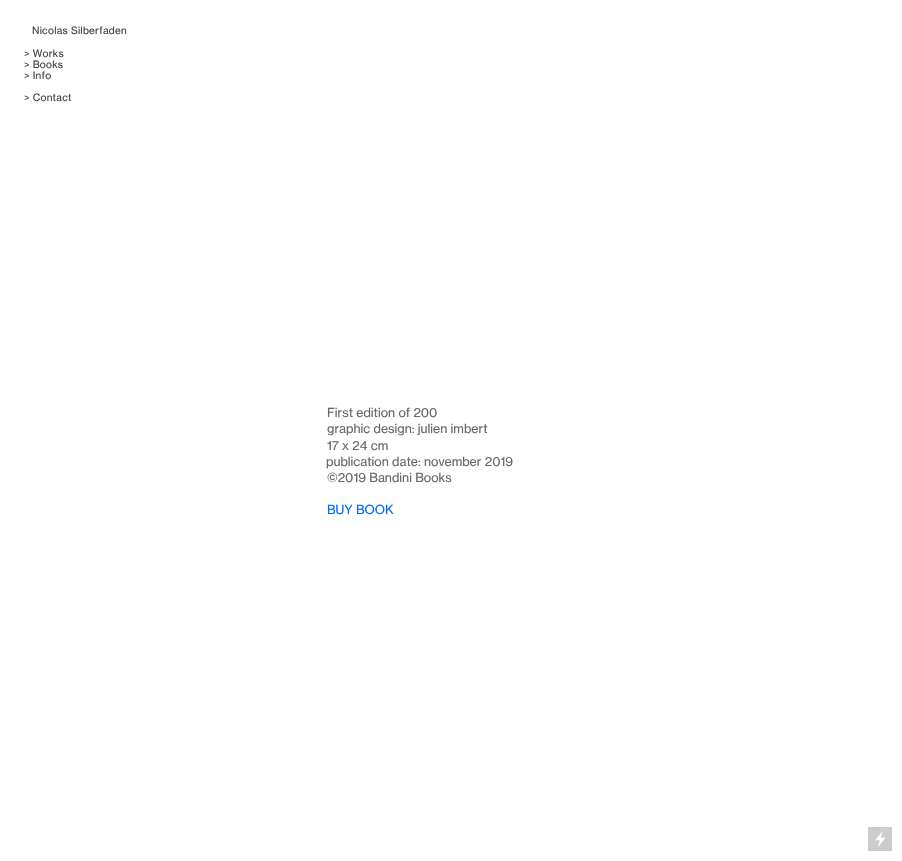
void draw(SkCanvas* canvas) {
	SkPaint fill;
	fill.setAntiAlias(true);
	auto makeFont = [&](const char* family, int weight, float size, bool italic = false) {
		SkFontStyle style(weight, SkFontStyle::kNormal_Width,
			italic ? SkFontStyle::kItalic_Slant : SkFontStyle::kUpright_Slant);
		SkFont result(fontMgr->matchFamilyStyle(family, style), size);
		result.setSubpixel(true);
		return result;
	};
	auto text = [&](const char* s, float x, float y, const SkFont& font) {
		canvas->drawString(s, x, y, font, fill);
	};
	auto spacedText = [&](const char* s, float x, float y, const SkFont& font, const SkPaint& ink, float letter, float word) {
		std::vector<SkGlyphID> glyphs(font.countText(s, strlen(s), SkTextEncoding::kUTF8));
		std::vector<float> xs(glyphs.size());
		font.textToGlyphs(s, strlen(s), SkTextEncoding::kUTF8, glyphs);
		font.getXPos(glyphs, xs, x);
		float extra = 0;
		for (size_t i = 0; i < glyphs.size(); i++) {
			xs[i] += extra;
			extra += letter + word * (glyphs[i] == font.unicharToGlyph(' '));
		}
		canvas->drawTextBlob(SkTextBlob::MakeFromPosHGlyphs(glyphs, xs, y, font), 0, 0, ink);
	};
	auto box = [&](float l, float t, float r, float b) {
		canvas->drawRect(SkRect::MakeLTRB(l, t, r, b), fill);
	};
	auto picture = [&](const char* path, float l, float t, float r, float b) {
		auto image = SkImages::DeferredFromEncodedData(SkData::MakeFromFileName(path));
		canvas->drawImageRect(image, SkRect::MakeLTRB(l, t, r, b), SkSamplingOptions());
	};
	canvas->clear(0xFFFFFFFF);
	fill.setColor(0xFFCCCCCC);
	box(868, 827, 892, 851);
	picture("image0.png", 875, 831, 886, 847);
	auto font1 = makeFont("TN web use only", 400, 10);
	fill.setColor(0xFF404040);
	spacedText("Nicolas Silberfaden", 32, 34, font1, fill, 0.25f, 0);
	spacedText("> Works", 24, 57, font1, fill, 0.25f, 0);
	spacedText("> Books", 24, 68, font1, fill, 0.25f, 0);
	spacedText("> Info", 24, 79, font1, fill, 0.25f, 0);
	spacedText("> Contact", 24, 101, font1, fill, 0.25f, 0);
	auto font2 = makeFont("TN web use only", 400, 12.4f);
	fill.setColor(0xFF666666);
	text("First edition of 200", 327, 417, font2);
	text("graphic design: julien imbert", 327, 433, font2);
	text("17 x 24 cm", 327, 450, font2);
	text("publication date: november 2019", 326, 466, font2);
	text("©2019 Bandini Books", 327, 482, font2);
	fill.setColor(0xFF0066FF);
	text("BUY BOOK", 327, 514, font2);
}
